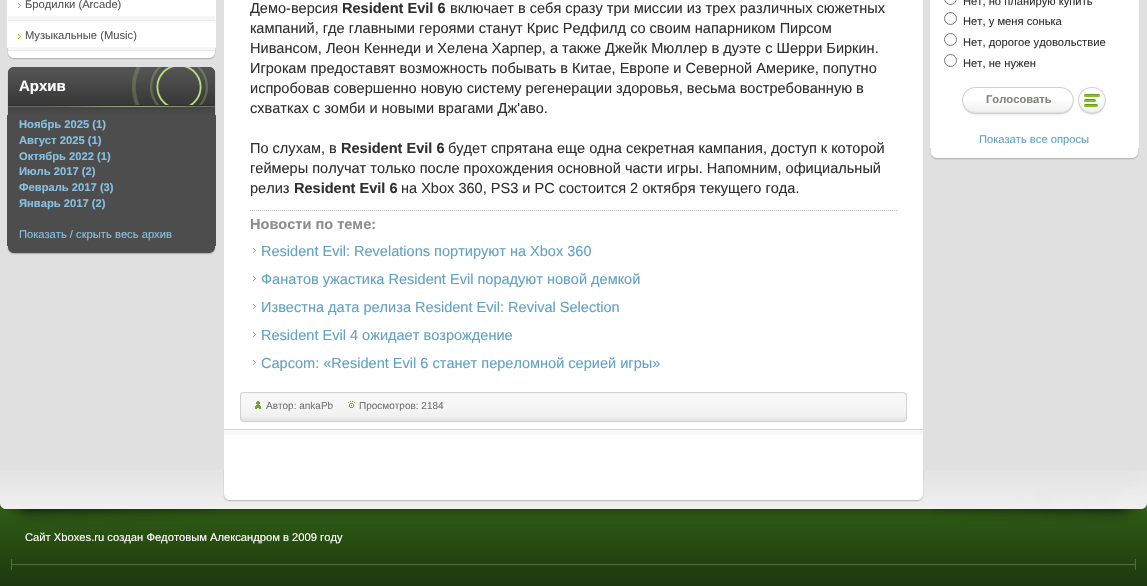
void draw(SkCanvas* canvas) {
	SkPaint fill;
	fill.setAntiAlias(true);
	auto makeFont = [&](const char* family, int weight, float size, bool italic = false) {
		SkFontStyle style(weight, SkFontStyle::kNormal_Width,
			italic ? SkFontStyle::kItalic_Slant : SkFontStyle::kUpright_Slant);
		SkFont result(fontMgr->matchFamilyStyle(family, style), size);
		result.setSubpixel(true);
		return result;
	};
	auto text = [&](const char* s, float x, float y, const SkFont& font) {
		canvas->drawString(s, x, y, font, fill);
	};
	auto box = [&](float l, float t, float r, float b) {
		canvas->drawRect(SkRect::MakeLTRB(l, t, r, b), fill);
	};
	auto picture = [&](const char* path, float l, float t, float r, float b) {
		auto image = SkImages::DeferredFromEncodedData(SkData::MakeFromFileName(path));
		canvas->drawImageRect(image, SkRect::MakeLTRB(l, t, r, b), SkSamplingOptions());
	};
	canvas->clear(0xFFFFFFFF);
	fill.setColor(0xFFE0E0E0);
	box(0, 0, 224, 470);
	box(923, 0, 1147, 470);
	fill.setColor(0xFFFFFFFF);
	box(7, 0, 216, 48);
	picture("image0.png", 7, 48, 216, 60);
	fill.setColor(0xFFF6F6F6);
	box(8, 16, 215, 20);
	fill.setColor(0xFFEAEAEA);
	box(8, 20, 215, 21);
	picture("image1.png", 18, 3, 21, 8);
	fill.setColor(0xFFF6F6F6);
	box(8, 47, 215, 50);
	fill.setColor(0xFFEAEAEA);
	box(8, 50, 215, 51);
	picture("image1.png", 18, 34, 21, 39);
	fill.setColor(0xFF4D4D4D);
	box(7, 115, 216, 246);
	picture("image2.png", 7, 67, 216, 115);
	picture("image3.png", 7, 246, 216, 255);
	fill.setStyle(SkPaint::kStroke_Style);
	fill.setStrokeWidth(1);
	fill.setColor(0xFFB6B6B6);
	fill.setPathEffect(SkDashPathEffect::Make({{1, 1}}, 0));
	canvas->drawPath(SkPathBuilder().moveTo(250, 210.5f).lineTo(897, 210.5f).detach(), fill);
	fill.setPathEffect(nullptr);
	picture("image4.png", 253, 248, 256, 253);
	picture("image4.png", 253, 276, 256, 281);
	picture("image4.png", 253, 304, 256, 309);
	picture("image4.png", 253, 332, 256, 337);
	picture("image4.png", 253, 360, 256, 365);
	picture("image5.png", 240, 392, 903, 423);
	picture("image6.png", 903, 392, 907, 423);
	picture("image7.png", 255, 401, 261, 409);
	picture("image8.png", 348, 401, 355, 408);
	picture("image9.png", 224, 429, 923, 435);
	fill.setStyle(SkPaint::kFill_Style);
	fill.setColor(0xFFFFFFFF);
	box(930, 0, 1139, 148);
	picture("image0.png", 930, 148, 1139, 160);
	fill.setStyle(SkPaint::kStroke_Style);
	fill.setColor(0xFF767676);
	canvas->drawCircle(950.5f, -1.5f, 6, fill);
	canvas->drawCircle(950.5f, 18.5f, 6, fill);
	canvas->drawCircle(950.5f, 39.5f, 6, fill);
	canvas->drawCircle(950.5f, 60.5f, 6, fill);
	picture("image10.png", 962, 87, 1074, 116);
	picture("image11.png", 1078, 87, 1106, 116);
	picture("image12.png", 0, 565, 1147, 586);
	picture("image13.png", 229, 500, 918, 509);
	picture("image14.png", 0, 470, 229, 509);
	picture("image15.png", 918, 470, 1147, 509);
	picture("image16.png", 216, 509, 931, 565);
	picture("image17.png", 0, 509, 216, 570);
	picture("image18.png", 931, 509, 1147, 570);
	auto font1 = makeFont("Liberation Sans", 400, 11.2f);
	fill.setStyle(SkPaint::kFill_Style);
	fill.setColor(0xFF545454);
	text("Бродилки (Arcade)", 25, 8, font1);
	text("Музыкальные (Music)", 25, 39, font1);
	auto font2 = makeFont("Liberation Sans", 700, 15);
	fill.setColor(0xFFFFFFFF);
	text("Архив", 19, 91, font2);
	auto font3 = makeFont("Liberation Sans", 700, 11.2f);
	fill.setColor(0xFF86C1E2);
	text("Ноябрь 2025 (1)", 19, 128, font3);
	text("Август 2025 (1)", 19, 144, font3);
	text("Октябрь 2022 (1)", 19, 160, font3);
	text("Июль 2017 (2)", 19, 175, font3);
	text("Февраль 2017 (3)", 19, 191, font3);
	text("Январь 2017 (2)", 19, 207, font3);
	text("Показать / скрыть весь архив", 19, 238, font1);
	auto font4 = makeFont("Liberation Sans", 400, 14.55f);
	fill.setColor(0xFF303030);
	text("Демо-версия", 250, 13, font4);
	auto font5 = makeFont("Liberation Sans", 700, 14.55f);
	text("Resident Evil 6", 342, 13, font5);
	text("включает в себя сразу три миссии из трех различных сюжетных", 450, 13, font4);
	text("кампаний, где главными героями станут Крис Редфилд со своим напарником Пирсом", 250, 33, font4);
	text("Нивансом, Леон Кеннеди и Хелена Харпер, а также Джейк Мюллер в дуэте с Шерри Биркин.", 250, 53, font4);
	text("Игрокам предоставят возможность побывать в Китае, Европе и Северной Америке, попутно", 250, 73, font4);
	text("испробовав совершенно новую систему регенерации здоровья, весьма востребованную в", 250, 93, font4);
	text("схватках с зомби и новыми врагами Дж'аво.", 250, 113, font4);
	text("По слухам, в", 250, 153, font4);
	text("Resident Evil 6", 341, 153, font5);
	text("будет спрятана еще одна секретная кампания, доступ к которой", 448, 153, font4);
	text("геймеры получат только после прохождения основной части игры. Напомним, официальный", 250, 173, font4);
	text("релиз", 250, 193, font4);
	text("Resident Evil 6", 294, 193, font5);
	text("на Xbox 360, PS3 и PС состоится 2 октября текущего года.", 401, 193, font4);
	fill.setColor(0xFF8C8C8C);
	text("Новости по теме:", 250, 229, font5);
	fill.setColor(0xFF60A2C6);
	text("Resident Evil: Revelations портируют на Xbox 360", 261, 256, font4);
	text("Фанатов ужастика Resident Evil порадуют новой демкой", 261, 284, font4);
	text("Известна дата релиза Resident Evil: Revival Selection", 261, 312, font4);
	text("Resident Evil 4 ожидает возрождение", 261, 340, font4);
	text("Capcom: «Resident Evil 6 станет переломной серией игры»", 261, 368, font4);
	auto font6 = makeFont("Liberation Sans", 400, 10);
	fill.setColor(0xFF717272);
	text("Автор: ankaPb", 266, 409, font6);
	text("Просмотров: 2184", 359, 409, font6);
	fill.setColor(0xFF303030);
	text("Нет, но планирую купить", 963, 5, font1);
	text("Нет, у меня сонька", 963, 25, font1);
	text("Нет, дорогое удовольствие", 963, 46, font1);
	text("Нет, не нужен", 963, 67, font1);
	fill.setColor(0xFF81867E);
	text("Голосовать", 986, 103, font3);
	fill.setColor(0xFF60A2C6);
	text("Показать все опросы", 979, 143, font1);
	fill.setColor(0xFFFFFFFF);
	text("Сайт Xboxes.ru создан Федотовым Александром в 2009 году", 25, 541, font1);
}
